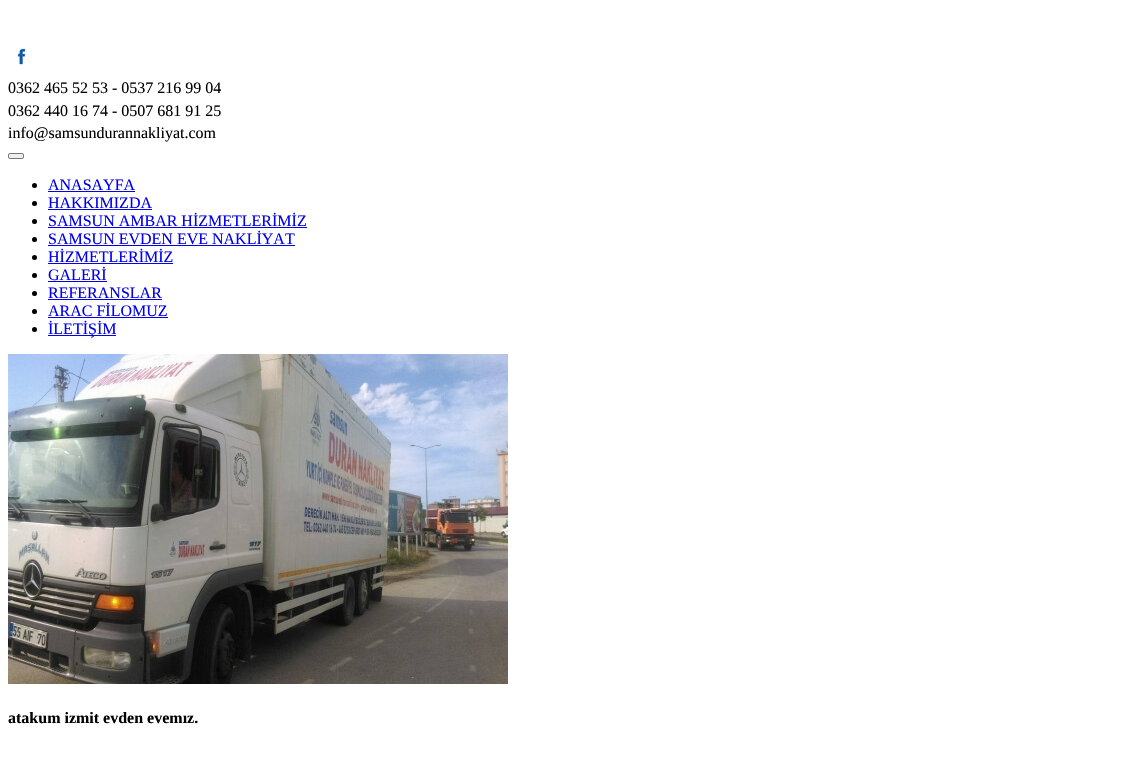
void draw(SkCanvas* canvas) {
	SkPaint fill;
	fill.setAntiAlias(true);
	auto makeFont = [&](const char* family, int weight, float size, bool italic = false) {
		SkFontStyle style(weight, SkFontStyle::kNormal_Width,
			italic ? SkFontStyle::kItalic_Slant : SkFontStyle::kUpright_Slant);
		SkFont result(fontMgr->matchFamilyStyle(family, style), size);
		result.setSubpixel(true);
		return result;
	};
	auto text = [&](const char* s, float x, float y, const SkFont& font) {
		canvas->drawString(s, x, y, font, fill);
	};
	auto box = [&](float l, float t, float r, float b) {
		canvas->drawRect(SkRect::MakeLTRB(l, t, r, b), fill);
	};
	auto picture = [&](const char* path, float l, float t, float r, float b) {
		auto image = SkImages::DeferredFromEncodedData(SkData::MakeFromFileName(path));
		canvas->drawImageRect(image, SkRect::MakeLTRB(l, t, r, b), SkSamplingOptions());
	};
	canvas->clear(0xFFFFFFFF);
	picture("image0.png", 17, 48, 26, 65);
	fill.setColor(0xFFEFEFEF);
	canvas->drawRoundRect(SkRect::MakeLTRB(8.5f, 153.5f, 23.5f, 158.5f), 1.5f, 1.5f, fill);
	fill.setStyle(SkPaint::kStroke_Style);
	fill.setStrokeWidth(1);
	fill.setColor(0xFF767676);
	canvas->drawRoundRect(SkRect::MakeLTRB(8.5f, 153.5f, 23.5f, 158.5f), 1.5f, 1.5f, fill);
	fill.setStyle(SkPaint::kFill_Style);
	fill.setColor(0xFF000000);
	canvas->drawCircle(34.5f, 185.5f, 2.5f, fill);
	fill.setColor(0xFF0000EE);
	box(48, 191, 135, 192);
	fill.setColor(0xFF000000);
	canvas->drawCircle(34.5f, 203.5f, 2.5f, fill);
	fill.setColor(0xFF0000EE);
	box(48, 209, 152, 210);
	fill.setColor(0xFF000000);
	canvas->drawCircle(34.5f, 221.5f, 2.5f, fill);
	fill.setColor(0xFF0000EE);
	box(48, 227, 307, 228);
	fill.setColor(0xFF000000);
	canvas->drawCircle(34.5f, 239.5f, 2.5f, fill);
	fill.setColor(0xFF0000EE);
	box(48, 245, 295, 246);
	fill.setColor(0xFF000000);
	canvas->drawCircle(34.5f, 257.5f, 2.5f, fill);
	fill.setColor(0xFF0000EE);
	box(48, 263, 173, 264);
	fill.setColor(0xFF000000);
	canvas->drawCircle(34.5f, 275.5f, 2.5f, fill);
	fill.setColor(0xFF0000EE);
	box(48, 281, 107, 282);
	fill.setColor(0xFF000000);
	canvas->drawCircle(34.5f, 293.5f, 2.5f, fill);
	fill.setColor(0xFF0000EE);
	box(48, 299, 162, 300);
	fill.setColor(0xFF000000);
	canvas->drawCircle(34.5f, 311.5f, 2.5f, fill);
	fill.setColor(0xFF0000EE);
	box(48, 317, 168, 318);
	fill.setColor(0xFF000000);
	canvas->drawCircle(34.5f, 329.5f, 2.5f, fill);
	fill.setColor(0xFF0000EE);
	box(48, 335, 116, 336);
	picture("image1.png", 8, 354, 508, 684);
	auto font1 = makeFont("Liberation Serif", 400, 16);
	fill.setColor(0xFF000000);
	text("0362 465 52 53 - 0537 216 99 04", 8, 93, font1);
	text("0362 440 16 74 - 0507 681 91 25", 8, 116, font1);
	text("info@samsundurannakliyat.com", 8, 138, font1);
	fill.setColor(0xFF0000EE);
	text("ANASAYFA", 48, 190, font1);
	text("HAKKIMIZDA", 48, 208, font1);
	text("SAMSUN AMBAR HİZMETLERİMİZ", 48, 226, font1);
	text("SAMSUN EVDEN EVE NAKLİYAT", 48, 244, font1);
	text("HİZMETLERİMİZ", 48, 262, font1);
	text("GALERİ", 48, 280, font1);
	text("REFERANSLAR", 48, 298, font1);
	text("ARAC FİLOMUZ", 48, 316, font1);
	text("İLETİŞİM", 48, 334, font1);
	auto font2 = makeFont("Liberation Serif", 700, 16);
	fill.setColor(0xFF000000);
	text("atakum izmit evden evemız.", 8, 723, font2);
}
